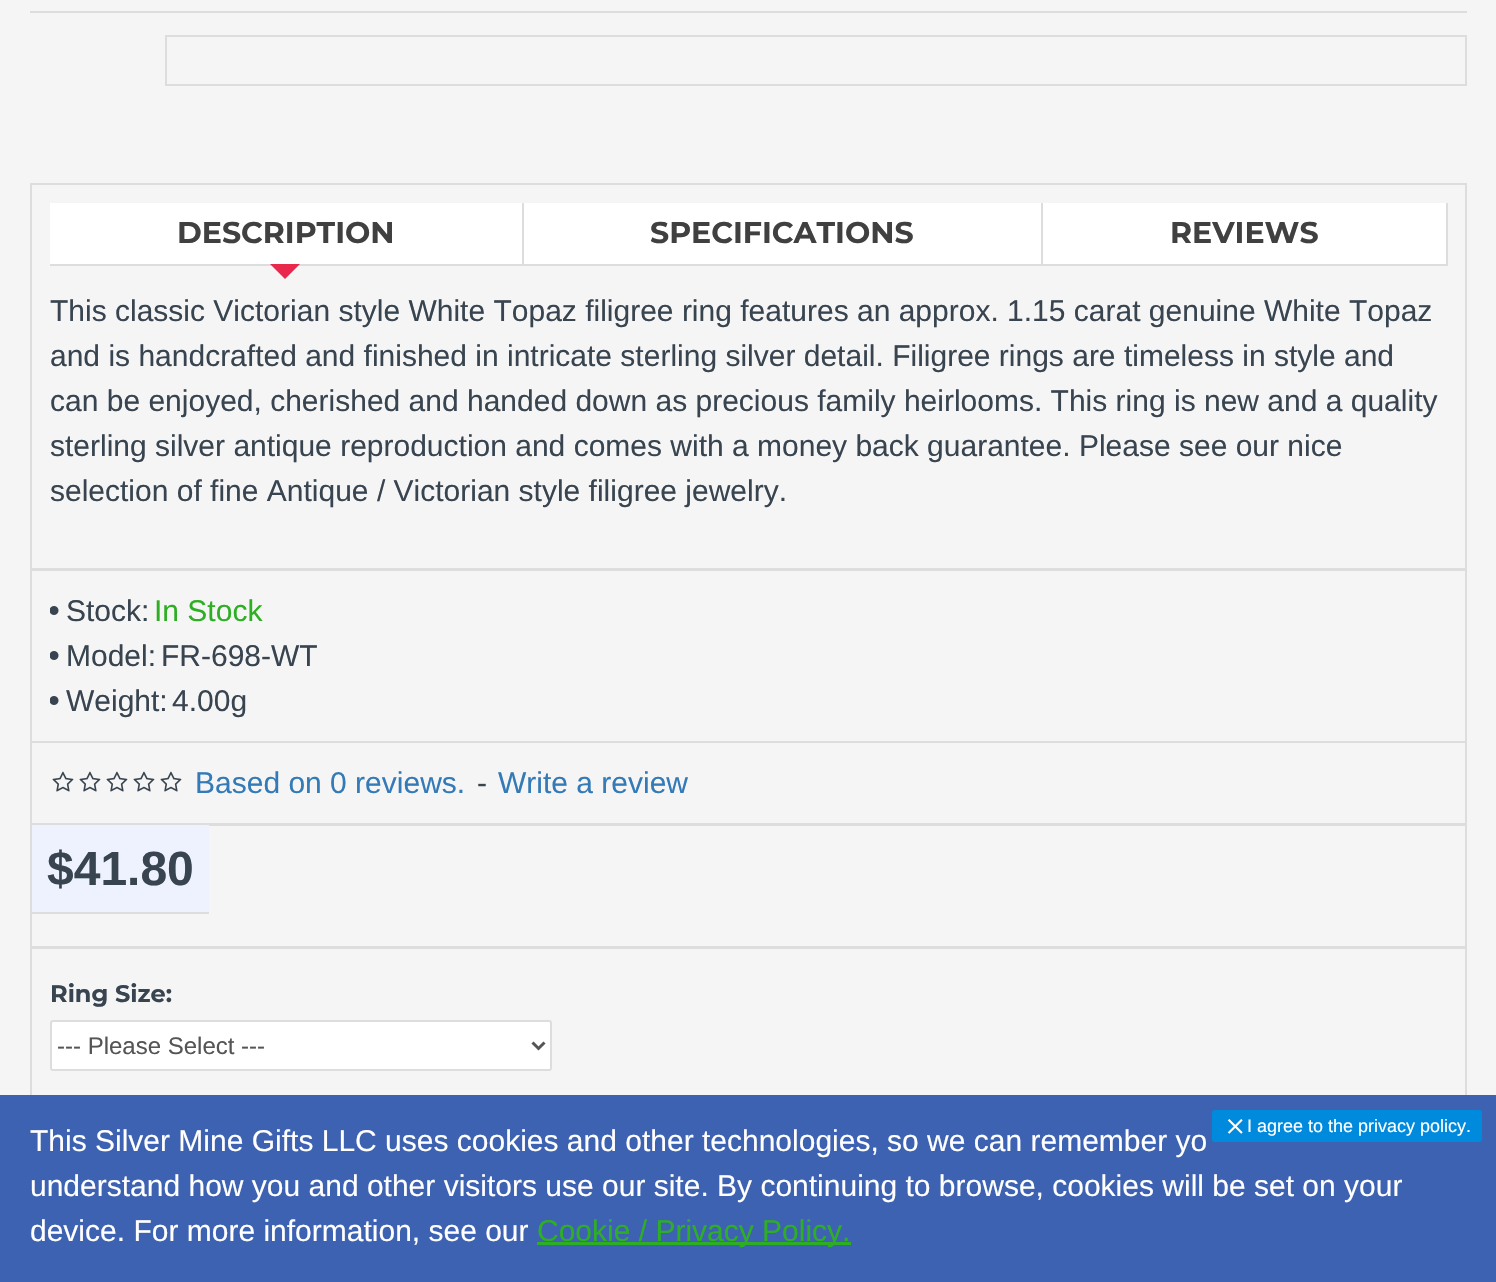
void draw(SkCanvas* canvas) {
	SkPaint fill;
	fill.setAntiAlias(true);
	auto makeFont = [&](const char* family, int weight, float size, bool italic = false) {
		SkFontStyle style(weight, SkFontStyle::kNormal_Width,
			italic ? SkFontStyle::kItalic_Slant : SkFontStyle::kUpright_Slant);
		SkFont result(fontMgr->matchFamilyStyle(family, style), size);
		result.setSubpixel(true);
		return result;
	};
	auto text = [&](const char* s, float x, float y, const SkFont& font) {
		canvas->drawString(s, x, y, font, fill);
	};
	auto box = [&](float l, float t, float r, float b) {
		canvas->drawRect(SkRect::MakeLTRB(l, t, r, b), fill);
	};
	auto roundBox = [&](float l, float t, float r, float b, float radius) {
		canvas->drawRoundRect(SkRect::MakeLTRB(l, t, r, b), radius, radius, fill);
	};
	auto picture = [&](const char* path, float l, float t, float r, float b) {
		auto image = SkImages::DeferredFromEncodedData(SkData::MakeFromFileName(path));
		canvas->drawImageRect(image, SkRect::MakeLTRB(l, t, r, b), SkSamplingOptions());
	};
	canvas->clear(0xFFF5F5F5);
	fill.setColor(0xFFDDDDDD);
	box(30, 11, 1467, 13);
	fill.setStyle(SkPaint::kStroke_Style);
	fill.setStrokeWidth(2);
	canvas->drawRect(SkRect::MakeLTRB(166, 36, 1466, 85), fill);
	canvas->drawRect(SkRect::MakeLTRB(31, 184, 1466, 569), fill);
	fill.setStyle(SkPaint::kFill_Style);
	box(522, 203, 524, 266);
	box(50, 264, 524, 266);
	fill.setColor(0xFFFFFFFF);
	box(50, 203, 522, 264);
	fill.setColor(0xFFE8284D);
	canvas->drawPath(SkPathBuilder().moveTo(270, 264).lineTo(300, 264).lineTo(285, 279).close().detach(), fill);
	fill.setColor(0xFFDDDDDD);
	box(1041, 203, 1043, 266);
	box(524, 264, 1043, 266);
	fill.setColor(0xFFFFFFFF);
	box(524, 203, 1041, 264);
	fill.setColor(0xFFDDDDDD);
	box(1446, 203, 1448, 266);
	box(1043, 264, 1448, 266);
	fill.setColor(0xFFFFFFFF);
	box(1043, 203, 1446, 264);
	fill.setStyle(SkPaint::kStroke_Style);
	fill.setColor(0xFFDDDDDD);
	canvas->drawRect(SkRect::MakeLTRB(31, 742, 1466, 824), fill);
	canvas->drawRect(SkRect::MakeLTRB(31, 570, 1466, 742), fill);
	picture("image0.png", 50, 606, 59, 615);
	picture("image0.png", 50, 651, 59, 660);
	picture("image0.png", 50, 696, 59, 705);
	picture("image1.png", 52, 771, 74, 792);
	picture("image1.png", 79, 771, 101, 792);
	picture("image1.png", 106, 771, 128, 792);
	picture("image1.png", 133, 771, 155, 792);
	picture("image1.png", 160, 771, 182, 792);
	canvas->drawRect(SkRect::MakeLTRB(31, 948, 1466, 1102), fill);
	canvas->drawRect(SkRect::MakeLTRB(31, 825, 1466, 947), fill);
	fill.setStyle(SkPaint::kFill_Style);
	fill.setColor(0xFFEDF2FE);
	box(32, 825, 209, 912);
	fill.setColor(0xFFDDDDDD);
	box(32, 912, 209, 914);
	fill.setColor(0xFFFFFFFF);
	canvas->drawRoundRect(SkRect::MakeLTRB(51, 1021, 551, 1070), 2, 2, fill);
	fill.setStyle(SkPaint::kStroke_Style);
	fill.setColor(0xFFDDDDDD);
	canvas->drawRoundRect(SkRect::MakeLTRB(51, 1021, 551, 1070), 2, 2, fill);
	fill.setStrokeWidth(3);
	fill.setColor(0xFF555555);
	canvas->drawPath(SkPathBuilder().moveTo(532.5f, 1042.5f).lineTo(538.5f, 1048.5f).lineTo(544.5f, 1042.5f).detach(), fill);
	fill.setStyle(SkPaint::kFill_Style);
	fill.setColor(0xFF3E62B2);
	box(0, 1095, 1496, 1282);
	fill.setColor(0xFF008ADD);
	roundBox(1212, 1110, 1482, 1142, 3);
	picture("image2.png", 1227, 1119, 1243, 1134);
	fill.setColor(0xFF2EAF23);
	box(537, 1242, 851, 1245);
	auto font1 = makeFont("Montserrat", 700, 30);
	fill.setColor(0xFF404040);
	text("DESCRIPTION", 177, 243, font1);
	text("SPECIFICATIONS", 650, 243, font1);
	text("REVIEWS", 1170, 243, font1);
	auto font2 = makeFont("Liberation Sans", 400, 30);
	fill.setColor(0xFF38444F);
	text("This classic Victorian style White Topaz filigree ring features an approx. 1.15 carat genuine White Topaz", 50, 321, font2);
	text("and is handcrafted and finished in intricate sterling silver detail. Filigree rings are timeless in style and", 50, 366, font2);
	text("can be enjoyed, cherished and handed down as precious family heirlooms. This ring is new and a quality", 50, 411, font2);
	text("sterling silver antique reproduction and comes with a money back guarantee. Please see our nice", 50, 456, font2);
	text("selection of fine Antique / Victorian style filigree jewelry.", 50, 501, font2);
	text("Stock:", 66, 621, font2);
	fill.setColor(0xFF2EAF23);
	text("In Stock", 154, 621, font2);
	fill.setColor(0xFF38444F);
	text("Model:", 66, 666, font2);
	text("FR-698-WT", 161, 666, font2);
	text("Weight:", 66, 711, font2);
	text("4.00g", 172, 711, font2);
	fill.setColor(0xFF337AB7);
	text("Based on 0 reviews.", 195, 793, font2);
	fill.setColor(0xFF38444F);
	text("-", 477, 793, font2);
	fill.setColor(0xFF337AB7);
	text("Write a review", 498, 793, font2);
	auto font3 = makeFont("Liberation Sans", 700, 48);
	fill.setColor(0xFF38444F);
	text("$41.80", 47, 885, font3);
	auto font4 = makeFont("Montserrat", 700, 24);
	text("Ring Size:", 50, 1002, font4);
	auto font5 = makeFont("Liberation Sans", 400, 24);
	fill.setColor(0xFF555555);
	text("--- Please Select ---", 57, 1054, font5);
	auto font6 = makeFont("Liberation Sans", 400, 18);
	fill.setColor(0xFFFFFFFF);
	text("I agree to the privacy policy.", 1247, 1132, font6);
	text("This Silver Mine Gifts LLC uses cookies and other technologies, so we can remember yo", 30, 1151, font2);
	text("understand how you and other visitors use our site. By continuing to browse, cookies will be set on your", 30, 1196, font2);
	text("device. For more information, see our", 30, 1241, font2);
	fill.setColor(0xFF2EAF23);
	text("Cookie / Privacy Policy.", 537, 1241, font2);
}
